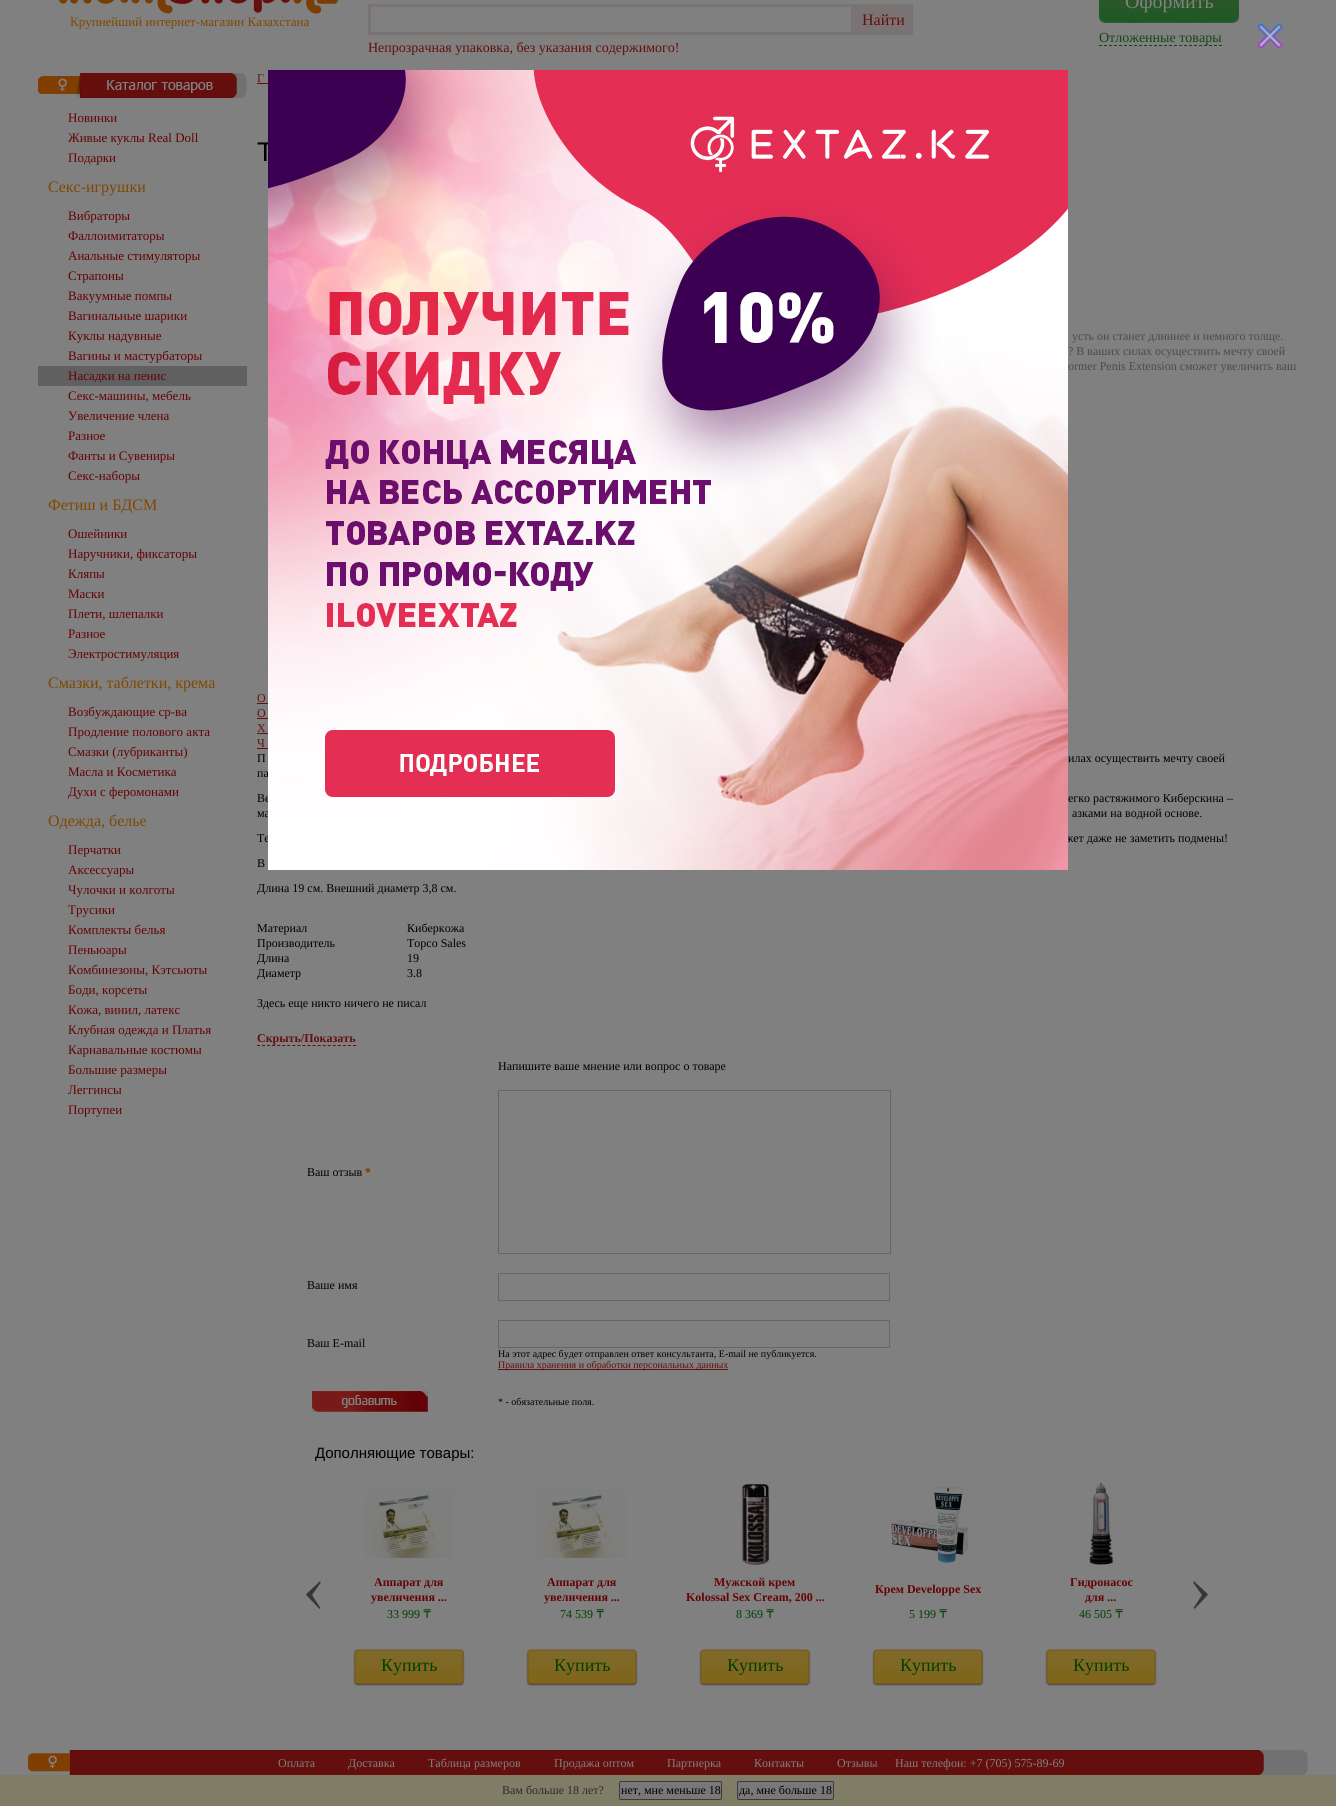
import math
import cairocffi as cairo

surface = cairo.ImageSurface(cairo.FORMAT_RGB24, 1336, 1806)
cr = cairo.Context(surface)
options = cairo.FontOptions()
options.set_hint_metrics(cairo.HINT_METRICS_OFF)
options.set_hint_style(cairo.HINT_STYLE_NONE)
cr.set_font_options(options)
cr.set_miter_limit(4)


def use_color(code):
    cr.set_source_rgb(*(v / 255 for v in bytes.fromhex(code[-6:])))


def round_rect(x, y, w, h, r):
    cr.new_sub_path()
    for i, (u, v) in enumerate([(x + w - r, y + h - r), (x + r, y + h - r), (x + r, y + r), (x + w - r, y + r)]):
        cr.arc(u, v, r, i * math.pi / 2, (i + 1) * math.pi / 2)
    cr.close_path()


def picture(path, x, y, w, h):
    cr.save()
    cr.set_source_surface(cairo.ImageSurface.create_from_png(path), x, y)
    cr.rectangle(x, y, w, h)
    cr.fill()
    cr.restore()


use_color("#808080")
cr.paint()
picture("img1.png", 59, 0, 279, 14)
cr.select_font_face("Liberation Serif")
cr.set_font_size(13)
use_color("#804700")
cr.move_to(70, 26)
cr.show_text("Крупнейший интернет-магазин Казахстана")
cr.rectangle(369.5, 5.5, 483, 28)
use_color("#7a7373")
cr.set_line_width(3)
cr.stroke()
cr.rectangle(854, 4, 59, 31)
cr.fill()
cr.set_font_size(16)
use_color("#650e0e")
cr.move_to(862, 25)
cr.show_text("Найти")
cr.set_font_size(14)
cr.move_to(368, 52)
cr.show_text("Непрозрачная упаковка, без указания содержимого!")
picture("img2.png", 1099, 0, 140, 23)
cr.set_font_size(20)
use_color("#808080")
cr.move_to(1125, 8)
cr.show_text("Оформить")
cr.set_font_size(14)
use_color("#104713")
cr.move_to(1099, 42)
cr.show_text("Отложенные товары")
cr.new_path()
cr.move_to(1099, 45.5)
cr.line_to(1222, 45.5)
cr.set_line_width(1)
cr.set_dash([3, 2])
cr.stroke()
picture("img3.png", 38, 73, 209, 25)
cr.set_font_size(13)
use_color("#650303")
cr.move_to(68, 122)
cr.show_text("Новинки")
cr.move_to(68, 142)
cr.show_text("Живые куклы Real Doll")
cr.move_to(68, 162)
cr.show_text("Подарки")
cr.set_font_size(16)
use_color("#804700")
cr.move_to(48, 192)
cr.show_text("Секс-игрушки")
cr.set_font_size(13)
use_color("#650303")
cr.move_to(68, 220)
cr.show_text("Вибраторы")
cr.move_to(68, 240)
cr.show_text("Фаллоимитаторы")
cr.move_to(68, 260)
cr.show_text("Анальные стимуляторы")
cr.move_to(68, 280)
cr.show_text("Страпоны")
cr.move_to(68, 300)
cr.show_text("Вакуумные помпы")
cr.move_to(68, 320)
cr.show_text("Вагинальные шарики")
cr.move_to(68, 340)
cr.show_text("Куклы надувные")
cr.move_to(68, 360)
cr.show_text("Вагины и мастурбаторы")
use_color("#606060")
cr.rectangle(38, 366, 209, 20)
cr.fill()
use_color("#650303")
cr.move_to(68, 380)
cr.show_text("Насадки на пенис")
cr.move_to(68, 400)
cr.show_text("Секс-машины, мебель")
cr.move_to(68, 420)
cr.show_text("Увеличение члена")
cr.move_to(68, 440)
cr.show_text("Разное")
cr.move_to(68, 460)
cr.show_text("Фанты и Сувениры")
cr.move_to(68, 480)
cr.show_text("Секс-наборы")
cr.set_font_size(16)
use_color("#804700")
cr.move_to(48, 510)
cr.show_text("Фетиш и БДСМ")
cr.set_font_size(13)
use_color("#650303")
cr.move_to(68, 538)
cr.show_text("Ошейники")
cr.move_to(68, 558)
cr.show_text("Наручники, фиксаторы")
cr.move_to(68, 578)
cr.show_text("Кляпы")
cr.move_to(68, 598)
cr.show_text("Маски")
cr.move_to(68, 618)
cr.show_text("Плети, шлепалки")
cr.move_to(68, 638)
cr.show_text("Разное")
cr.move_to(68, 658)
cr.show_text("Электростимуляция")
cr.set_font_size(16)
use_color("#804700")
cr.move_to(48, 688)
cr.show_text("Смазки, таблетки, крема")
cr.set_font_size(13)
use_color("#650303")
cr.move_to(68, 716)
cr.show_text("Возбуждающие ср-ва")
cr.move_to(68, 736)
cr.show_text("Продление полового акта")
cr.move_to(68, 756)
cr.show_text("Смазки (лубриканты)")
cr.move_to(68, 776)
cr.show_text("Масла и Косметика")
cr.move_to(68, 796)
cr.show_text("Духи с феромонами")
cr.set_font_size(16)
use_color("#804700")
cr.move_to(48, 826)
cr.show_text("Одежда, белье")
cr.set_font_size(13)
use_color("#650303")
cr.move_to(68, 854)
cr.show_text("Перчатки")
cr.move_to(68, 874)
cr.show_text("Аксессуары")
cr.move_to(68, 894)
cr.show_text("Чулочки и колготы")
cr.move_to(68, 914)
cr.show_text("Трусики")
cr.move_to(68, 934)
cr.show_text("Комплекты белья")
cr.move_to(68, 954)
cr.show_text("Пеньюары")
cr.move_to(68, 974)
cr.show_text("Комбинезоны, Кэтсьюты")
cr.move_to(68, 994)
cr.show_text("Боди, корсеты")
cr.move_to(68, 1014)
cr.show_text("Кожа, винил, латекс")
cr.move_to(68, 1034)
cr.show_text("Клубная одежда и Платья")
cr.move_to(68, 1054)
cr.show_text("Карнавальные костюмы")
cr.move_to(68, 1074)
cr.show_text("Большие размеры")
cr.move_to(68, 1094)
cr.show_text("Леггинсы")
cr.move_to(68, 1114)
cr.show_text("Портупеи")
cr.set_font_size(12)
use_color("#650e0e")
cr.move_to(257, 82)
cr.show_text("Г")
cr.rectangle(257, 83, 11, 1)
cr.fill()
cr.select_font_face("Liberation Sans")
cr.set_font_size(27)
use_color("#000000")
cr.move_to(257, 161)
cr.show_text("T")
cr.select_font_face("Liberation Serif")
cr.set_font_size(12)
use_color("#4b4b4b")
cr.move_to(1072, 340)
cr.show_text("усть он станет длиннее и немного толще.")
cr.move_to(1068, 355)
cr.show_text("? В ваших силах осуществить мечту своей")
cr.move_to(1068, 370)
cr.show_text("ormer Penis Extension сможет увеличить ваш")
use_color("#650e0e")
cr.move_to(257, 702)
cr.show_text("О")
cr.rectangle(257, 703, 11, 1)
cr.fill()
cr.move_to(257, 717)
cr.show_text("О")
cr.rectangle(257, 718, 11, 1)
cr.fill()
cr.move_to(257, 732)
cr.show_text("Х")
cr.rectangle(257, 733, 11, 1)
cr.fill()
cr.move_to(257, 747)
cr.show_text("Ч")
cr.rectangle(257, 748, 11, 1)
cr.fill()
use_color("#000000")
cr.move_to(257, 762)
cr.show_text("П")
cr.move_to(1068, 762)
cr.show_text("илах осуществить мечту своей")
cr.move_to(257, 777)
cr.show_text("па")
cr.move_to(257, 802)
cr.show_text("Ве")
cr.move_to(1068, 802)
cr.show_text("егко растяжимого Киберскина –")
cr.move_to(257, 817)
cr.show_text("ма")
cr.move_to(1072, 817)
cr.show_text("азками на водной основе.")
cr.move_to(257, 842)
cr.show_text("Те")
cr.move_to(1065, 842)
cr.show_text("жет даже не заметить подмены!")
cr.move_to(257, 867)
cr.show_text("В")
cr.move_to(257, 892)
cr.show_text("Длина 19 см. Внешний диаметр 3,8 см.")
cr.move_to(257, 932)
cr.show_text("Материал")
cr.move_to(407, 932)
cr.show_text("Киберкожа")
cr.move_to(257, 947)
cr.show_text("Производитель")
cr.move_to(407, 947)
cr.show_text("Topco Sales")
cr.move_to(257, 962)
cr.show_text("Длина")
cr.move_to(407, 962)
cr.show_text("19")
cr.move_to(257, 977)
cr.show_text("Диаметр")
cr.move_to(407, 977)
cr.show_text("3.8")
cr.move_to(257, 1007)
cr.show_text("Здесь еще никто ничего не писал")
cr.select_font_face("Liberation Serif", cairo.FONT_SLANT_NORMAL, cairo.FONT_WEIGHT_BOLD)
use_color("#650e0e")
cr.move_to(257, 1042)
cr.show_text("Скрыть/Показать")
cr.new_path()
cr.move_to(257, 1045.5)
cr.line_to(356, 1045.5)
use_color("#690c11")
cr.set_dash([3, 2.05])
cr.stroke()
cr.select_font_face("Liberation Serif")
use_color("#000000")
cr.move_to(498, 1070)
cr.show_text("Напишите ваше мнение или вопрос о товаре")
cr.move_to(307, 1176)
cr.show_text("Ваш отзыв")
cr.select_font_face("Liberation Serif", cairo.FONT_SLANT_NORMAL, cairo.FONT_WEIGHT_BOLD)
use_color("#783600")
cr.move_to(365, 1176)
cr.show_text("*")
cr.rectangle(498.5, 1090.5, 392, 163)
use_color("#666666")
cr.set_dash([])
cr.stroke()
cr.select_font_face("Liberation Serif")
use_color("#000000")
cr.move_to(307, 1289)
cr.show_text("Ваше имя")
cr.rectangle(498.5, 1273.5, 391, 27)
use_color("#666666")
cr.stroke()
use_color("#000000")
cr.move_to(307, 1347)
cr.show_text("Ваш E-mail")
cr.rectangle(498.5, 1320.5, 391, 27)
use_color("#666666")
cr.stroke()
cr.set_font_size(10)
use_color("#000000")
cr.move_to(498, 1357)
cr.show_text("На этот адрес будет отправлен ответ консультанта, E-mail не публикуется.")
use_color("#650e0e")
cr.rectangle(498, 1369, 230, 1)
cr.fill()
cr.move_to(498, 1368)
cr.show_text("Правила хранения и обработки персональных данных")
picture("img4.png", 312, 1391, 116, 21)
use_color("#000000")
cr.move_to(498, 1405)
cr.show_text("* - обязательные поля.")
cr.select_font_face("Liberation Sans")
cr.set_font_size(15)
cr.move_to(315, 1458)
cr.show_text("Дополняющие товары:")
picture("img5.png", 306, 1581, 15, 28)
picture("img6.png", 364, 1490, 90, 70)
cr.select_font_face("Liberation Serif", cairo.FONT_SLANT_NORMAL, cairo.FONT_WEIGHT_BOLD)
cr.set_font_size(12)
use_color("#650303")
cr.move_to(374, 1586)
cr.show_text("Аппарат для")
cr.move_to(371, 1601)
cr.show_text("увеличения ...")
cr.select_font_face("Liberation Serif")
use_color("#004000")
cr.move_to(387, 1618)
cr.show_text("33 999")
cr.select_font_face("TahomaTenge")
cr.move_to(423, 1618)
cr.show_text("т")
picture("img7.png", 353, 1649, 112, 37)
cr.select_font_face("Liberation Serif")
cr.set_font_size(18)
cr.move_to(381, 1671)
cr.show_text("Купить")
picture("img6.png", 537, 1490, 90, 70)
cr.select_font_face("Liberation Serif", cairo.FONT_SLANT_NORMAL, cairo.FONT_WEIGHT_BOLD)
cr.set_font_size(12)
use_color("#650303")
cr.move_to(547, 1586)
cr.show_text("Аппарат для")
cr.move_to(544, 1601)
cr.show_text("увеличения ...")
cr.select_font_face("Liberation Serif")
use_color("#004000")
cr.move_to(560, 1618)
cr.show_text("74 539")
cr.select_font_face("TahomaTenge")
cr.move_to(596, 1618)
cr.show_text("т")
picture("img7.png", 526, 1649, 112, 37)
cr.select_font_face("Liberation Serif")
cr.set_font_size(18)
cr.move_to(554, 1671)
cr.show_text("Купить")
picture("img8.png", 741, 1484, 29, 82)
cr.select_font_face("Liberation Serif", cairo.FONT_SLANT_NORMAL, cairo.FONT_WEIGHT_BOLD)
cr.set_font_size(12)
use_color("#650303")
cr.move_to(714, 1586)
cr.show_text("Мужской крем")
cr.move_to(686, 1601)
cr.show_text("Kolossal Sex Cream, 200 ...")
cr.select_font_face("Liberation Serif")
use_color("#004000")
cr.move_to(736, 1618)
cr.show_text("8 369")
cr.select_font_face("TahomaTenge")
cr.move_to(766, 1618)
cr.show_text("т")
picture("img7.png", 699, 1649, 112, 37)
cr.select_font_face("Liberation Serif")
cr.set_font_size(18)
cr.move_to(727, 1671)
cr.show_text("Купить")
picture("img9.png", 891, 1486, 78, 78)
cr.select_font_face("Liberation Serif", cairo.FONT_SLANT_NORMAL, cairo.FONT_WEIGHT_BOLD)
cr.set_font_size(12)
use_color("#650303")
cr.move_to(875, 1593)
cr.show_text("Крем Developpe Sex")
cr.select_font_face("Liberation Serif")
use_color("#004000")
cr.move_to(909, 1618)
cr.show_text("5 199")
cr.select_font_face("TahomaTenge")
cr.move_to(939, 1618)
cr.show_text("т")
picture("img7.png", 872, 1649, 112, 37)
cr.select_font_face("Liberation Serif")
cr.set_font_size(18)
cr.move_to(900, 1671)
cr.show_text("Купить")
picture("img10.png", 1089, 1483, 24, 82)
cr.select_font_face("Liberation Serif", cairo.FONT_SLANT_NORMAL, cairo.FONT_WEIGHT_BOLD)
cr.set_font_size(12)
use_color("#650303")
cr.move_to(1070, 1586)
cr.show_text("Гидронасос")
cr.move_to(1085, 1601)
cr.show_text("для ...")
cr.select_font_face("Liberation Serif")
use_color("#004000")
cr.move_to(1079, 1618)
cr.show_text("46 505")
cr.select_font_face("TahomaTenge")
cr.move_to(1115, 1618)
cr.show_text("т")
picture("img7.png", 1045, 1649, 112, 37)
cr.select_font_face("Liberation Serif")
cr.set_font_size(18)
cr.move_to(1073, 1671)
cr.show_text("Купить")
picture("img11.png", 1193, 1581, 15, 28)
picture("img12.png", 28, 1750, 42, 25)
use_color("#650e0e")
cr.rectangle(70, 1750, 1188, 25)
cr.fill()
cr.set_font_size(12)
use_color("#808080")
cr.move_to(278, 1767)
cr.show_text("Оплата")
cr.move_to(348, 1767)
cr.show_text("Доставка")
cr.move_to(428, 1767)
cr.show_text("Таблица размеров")
cr.move_to(554, 1767)
cr.show_text("Продажа оптом")
cr.move_to(667, 1767)
cr.show_text("Партнерка")
cr.move_to(754, 1767)
cr.show_text("Контакты")
cr.move_to(837, 1767)
cr.show_text("Отзывы")
cr.move_to(895, 1767)
cr.show_text("Наш телефон: +7 (705) 575-89-69")
picture("img13.png", 1258, 1750, 50, 25)
picture("img14.png", 1257, 23, 26, 26)
picture("img15.png", 268, 70, 800, 800)
use_color("#807d67")
cr.rectangle(0, 1775, 1336, 31)
cr.fill()
use_color("#2a2a2a")
cr.move_to(502, 1794)
cr.show_text("Вам больше 18 лет?")
use_color("#787878")
round_rect(619.5, 1781.5, 102, 18, 1.5)
cr.fill_preserve()
use_color("#3b3b3b")
cr.stroke()
use_color("#000000")
cr.move_to(621, 1794)
cr.show_text("нет, мне меньше 18")
use_color("#787878")
round_rect(737.5, 1781.5, 96, 18, 1.5)
cr.fill_preserve()
use_color("#3b3b3b")
cr.stroke()
use_color("#000000")
cr.move_to(739, 1794)
cr.show_text("да, мне больше 18")
surface.write_to_png("result.png")
